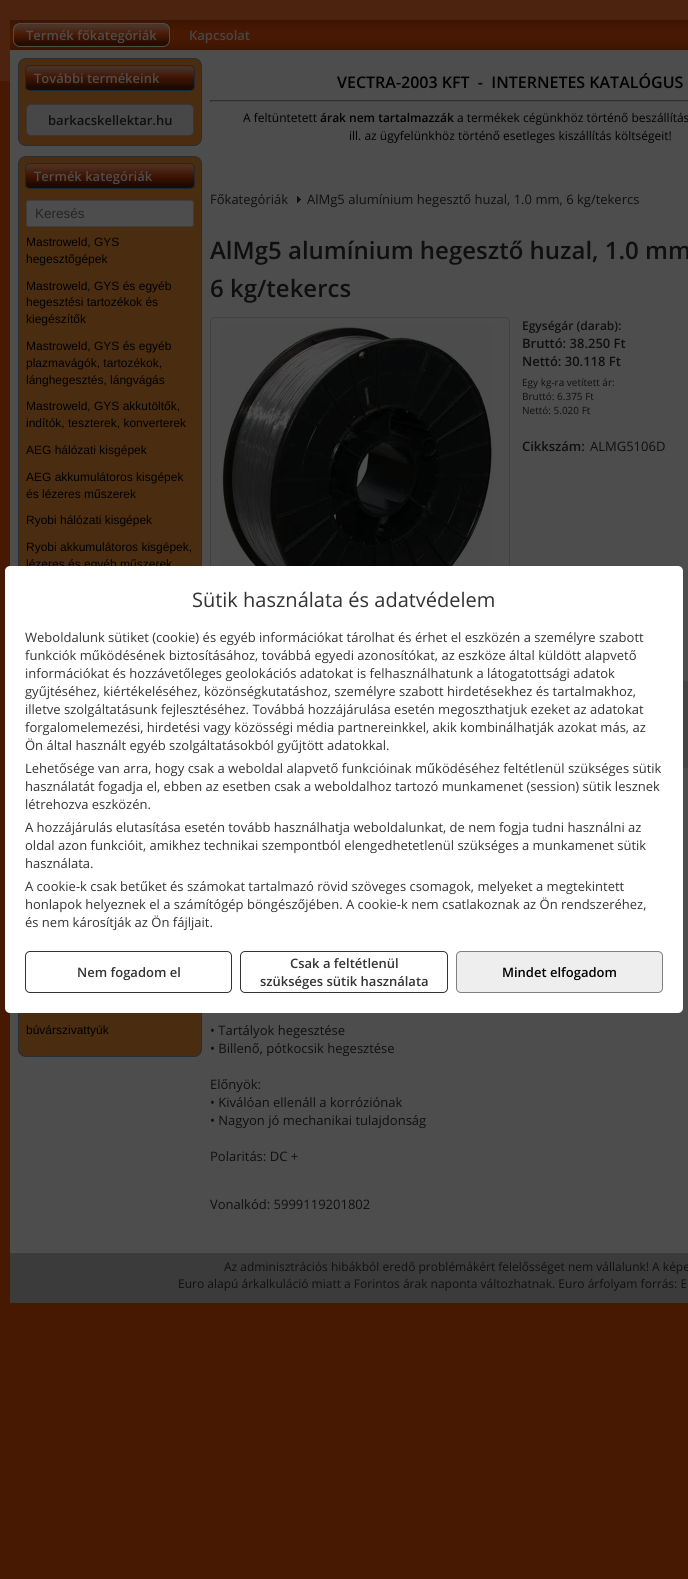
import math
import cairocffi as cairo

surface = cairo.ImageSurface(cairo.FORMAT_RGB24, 688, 1579)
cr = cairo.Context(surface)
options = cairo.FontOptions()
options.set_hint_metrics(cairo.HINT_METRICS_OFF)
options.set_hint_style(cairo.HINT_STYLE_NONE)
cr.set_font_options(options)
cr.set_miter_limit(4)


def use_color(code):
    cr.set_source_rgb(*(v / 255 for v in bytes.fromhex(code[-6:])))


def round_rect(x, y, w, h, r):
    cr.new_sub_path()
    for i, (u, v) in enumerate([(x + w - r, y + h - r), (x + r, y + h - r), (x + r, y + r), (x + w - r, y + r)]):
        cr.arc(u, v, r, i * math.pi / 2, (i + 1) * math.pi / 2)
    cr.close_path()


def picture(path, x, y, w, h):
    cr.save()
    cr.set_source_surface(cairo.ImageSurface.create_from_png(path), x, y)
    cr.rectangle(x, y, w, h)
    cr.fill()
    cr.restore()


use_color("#471802")
cr.paint()
use_color("#4b230f")
cr.rectangle(0, 0, 688, 81)
cr.fill()
use_color("#4d4d4d")
cr.rectangle(10, 50, 678, 1203)
cr.fill()
gradient = cairo.LinearGradient(510, 20, 510, 50)
gradient.add_color_stop_rgba(0, 0.235, 0.082, 0.004, 1)
gradient.add_color_stop_rgba(0.35, 0.278, 0.094, 0.008, 1)
gradient.add_color_stop_rgba(0.65, 0.278, 0.094, 0.008, 1)
gradient.add_color_stop_rgba(1, 0.235, 0.082, 0.004, 1)
cr.set_source(gradient)
cr.rectangle(10, 20, 678, 30)
cr.fill()
cr.save()
round_rect(13, 23, 157, 24, 7)
cr.clip()
gradient = cairo.LinearGradient(92, 24, 92, 46)
gradient.add_color_stop_rgba(0.1, 0.298, 0.204, 0.157, 1)
gradient.add_color_stop_rgba(0.5, 0.282, 0.098, 0.008, 1)
gradient.add_color_stop_rgba(0.9, 0.137, 0.047, 0.004, 1)
cr.set_source(gradient)
cr.rectangle(13, 24, 157, 22)
cr.fill()
cr.restore()
round_rect(13.5, 23.5, 156, 23, 6.5)
use_color("#4d4d4d")
cr.set_line_width(1)
cr.stroke()
cr.select_font_face("Open Sans SemiBold")
cr.set_font_size(13)
cr.move_to(26, 40)
cr.show_text("Termék főkategóriák")
picture("img1.png", 173, 31, 1, 9)
use_color("#464646")
cr.move_to(189, 40)
cr.show_text("Kapcsolat")
use_color("#4a2d10")
round_rect(18.5, 58.5, 183, 87, 7.5)
cr.fill_preserve()
use_color("#262d35")
cr.stroke()
cr.save()
round_rect(25, 65, 170, 26, 5)
cr.clip()
gradient = cairo.LinearGradient(110, 66, 110, 90)
gradient.add_color_stop_rgba(0.1, 0.298, 0.184, 0.137, 1)
gradient.add_color_stop_rgba(0.5, 0.247, 0.078, 0.004, 1)
gradient.add_color_stop_rgba(0.9, 0.11, 0.035, 0, 1)
cr.set_source(gradient)
cr.rectangle(25, 66, 170, 24)
cr.fill()
cr.restore()
round_rect(25.5, 65.5, 169, 25, 4.5)
use_color("#1f2730")
cr.stroke()
use_color("#4d4d4d")
cr.move_to(34, 83)
cr.show_text("További termékeink")
use_color("#474747")
round_rect(26.5, 104.5, 167, 31, 4.5)
cr.fill_preserve()
use_color("#383838")
cr.stroke()
use_color("#0f0f0f")
cr.move_to(48, 125)
cr.show_text("barkacskellektar.hu")
use_color("#4a2d10")
round_rect(18.5, 156.5, 183, 900, 7.5)
cr.fill_preserve()
use_color("#262d35")
cr.stroke()
cr.save()
round_rect(25, 163, 170, 26, 5)
cr.clip()
gradient = cairo.LinearGradient(110, 164, 110, 188)
gradient.add_color_stop_rgba(0.1, 0.298, 0.184, 0.137, 1)
gradient.add_color_stop_rgba(0.5, 0.247, 0.078, 0.004, 1)
gradient.add_color_stop_rgba(0.9, 0.11, 0.035, 0, 1)
cr.set_source(gradient)
cr.rectangle(25, 164, 170, 24)
cr.fill()
cr.restore()
round_rect(25.5, 163.5, 169, 25, 4.5)
use_color("#1f2730")
cr.stroke()
use_color("#4d4d4d")
cr.move_to(34, 181)
cr.show_text("Termék kategóriák")
round_rect(26.5, 200.5, 167, 26, 2.5)
cr.fill_preserve()
use_color("#3d3d3d")
cr.stroke()
cr.select_font_face("Liberation Sans")
cr.set_font_size(13.5)
use_color("#232323")
cr.move_to(35, 218)
cr.show_text("Keresés")
cr.set_font_size(12)
use_color("#000000")
cr.move_to(26, 246)
cr.show_text("Mastroweld, GYS")
cr.move_to(26, 263)
cr.show_text("hegesztőgépek")
cr.move_to(26, 290)
cr.show_text("Mastroweld, GYS és egyéb")
cr.move_to(26, 306)
cr.show_text("hegesztési tartozékok és")
cr.move_to(26, 323)
cr.show_text("kiegészítők")
cr.move_to(26, 350)
cr.show_text("Mastroweld, GYS és egyéb")
cr.move_to(26, 367)
cr.show_text("plazmavágók, tartozékok,")
cr.move_to(26, 384)
cr.show_text("lánghegesztés, lángvágás")
cr.move_to(26, 410)
cr.show_text("Mastroweld, GYS akkutöltők,")
cr.move_to(26, 427)
cr.show_text("indítók, teszterek, konverterek")
cr.move_to(26, 454)
cr.show_text("AEG hálózati kisgépek")
cr.move_to(26, 481)
cr.show_text("AEG akkumulátoros kisgépek")
cr.move_to(26, 498)
cr.show_text("és lézeres műszerek")
cr.move_to(26, 524)
cr.show_text("Ryobi hálózati kisgépek")
cr.move_to(26, 551)
cr.show_text("Ryobi akkumulátoros kisgépek,")
cr.move_to(26, 568)
cr.show_text("lézeres és egyéb műszerek")
cr.move_to(26, 1034)
cr.show_text("búvárszivattyúk")
cr.select_font_face("Open Sans SemiBold")
cr.set_font_size(16)
cr.move_to(337, 88)
cr.show_text("VECTRA-2003 KFT  -  INTERNETES KATALÓGUS")
use_color("#303030")
cr.rectangle(210, 100, 478, 1)
cr.fill()
use_color("#474747")
cr.rectangle(210, 101, 478, 1)
cr.fill()
use_color("#303030")
cr.rectangle(210, 100, 1, 2)
cr.fill()
cr.select_font_face("Open Sans")
cr.set_font_size(12)
use_color("#000000")
cr.move_to(243, 122)
cr.show_text("A feltüntetett")
cr.select_font_face("Open Sans SemiBold")
cr.move_to(320, 122)
cr.show_text("árak nem tartalmazzák")
cr.select_font_face("Open Sans")
cr.move_to(457, 122)
cr.show_text("a termékek cégünkhöz történő beszállítás")
cr.move_to(349, 140)
cr.show_text("ill. az ügyfelünkhöz történő esetleges kiszállítás költségeit!")
cr.set_font_size(13)
use_color("#0f0f0f")
cr.move_to(210, 204)
cr.show_text("Főkategóriák")
picture("img2.png", 297, 196, 4, 7)
cr.move_to(307, 204)
cr.show_text("AlMg5 alumínium hegesztő huzal, 1.0 mm, 6 kg/tekercs")
cr.select_font_face("Open Sans SemiBold")
cr.set_font_size(24)
cr.move_to(210, 259)
cr.show_text("AlMg5 alumínium hegesztő huzal, 1.0 mm")
cr.move_to(210, 297)
cr.show_text("6 kg/tekercs")
round_rect(210.5, 317.5, 299, 307, 4.5)
use_color("#424242")
cr.stroke()
picture("img3.png", 221, 325, 273, 241)
cr.set_font_size(12)
use_color("#0f0f0f")
cr.move_to(522, 330)
cr.show_text("Egységár (darab):")
cr.set_font_size(13)
cr.move_to(522, 348)
cr.show_text("Bruttó: 38.250 Ft")
cr.move_to(522, 366)
cr.show_text("Nettó: 30.118 Ft")
cr.select_font_face("Open Sans")
cr.set_font_size(10)
cr.move_to(522, 386)
cr.show_text("Egy kg-ra vetített ár:")
cr.move_to(522, 400)
cr.show_text("Bruttó: 6.375 Ft")
cr.move_to(522, 414)
cr.show_text("Nettó: 5.020 Ft")
cr.select_font_face("Open Sans SemiBold")
cr.set_font_size(13)
cr.move_to(522, 451)
cr.show_text("Cikkszám:")
cr.select_font_face("Open Sans")
cr.move_to(590, 451)
cr.show_text("ALMG5106D")
gradient = cairo.LinearGradient(210, 725, 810, 725)
gradient.add_color_stop_rgba(0.04, 0.286, 0.286, 0.286, 1)
gradient.add_color_stop_rgba(0.99, 0.263, 0.263, 0.259, 1)
cr.set_source(gradient)
cr.rectangle(683, 681, 5, 87)
cr.fill()
use_color("#0f0f0f")
cr.move_to(210, 1035)
cr.show_text("• Tartályok hegesztése")
cr.move_to(210, 1053)
cr.show_text("• Billenő, pótkocsik hegesztése")
cr.move_to(210, 1089)
cr.show_text("Előnyök:")
cr.move_to(210, 1107)
cr.show_text("• Kiválóan ellenáll a korróziónak")
cr.move_to(210, 1125)
cr.show_text("• Nagyon jó mechanikai tulajdonság")
cr.move_to(210, 1161)
cr.show_text("Polaritás: DC +")
cr.move_to(210, 1209)
cr.show_text("Vonalkód: 5999119201802")
use_color("#3b3b3c")
cr.rectangle(10, 1253, 678, 50)
cr.fill()
cr.set_font_size(12)
use_color("#0f0f0f")
cr.move_to(224, 1271)
cr.show_text("Az adminisztrációs hibákból eredő problémákért felelősséget nem vállalunk! A képe")
cr.move_to(178, 1288)
cr.show_text("Euro alapú árkalkuláció miatt a Forintos árak naponta változhatnak. Euro árfolyam forrás: E")
use_color("#ffffff")
round_rect(5, 566, 678, 447, 5)
cr.fill()
cr.set_font_size(20)
use_color("#333333")
cr.move_to(192, 607)
cr.show_text("Sütik használata és adatvédelem")
cr.set_font_size(13)
cr.move_to(25, 642)
cr.show_text("Weboldalunk sütiket (cookie) és egyéb információkat tárolhat és érhet el eszközén a személyre szabott")
cr.move_to(25, 660)
cr.show_text("funkciók működésének biztosításához, továbbá egyedi azonosítókat, az eszköze által küldött alapvető")
cr.move_to(25, 678)
cr.show_text("információkat és hozzávetőleges geolokációs adatokat is felhasználhatunk a látogatottsági adatok")
cr.move_to(25, 696)
cr.show_text("gyűjtéséhez, kiértékeléséhez, közönségkutatáshoz, személyre szabott hirdetésekhez és tartalmakhoz,")
cr.move_to(25, 714)
cr.show_text("illetve szolgáltatásunk fejlesztéséhez. Továbbá hozzájárulása esetén megoszthatjuk ezeket az adatokat")
cr.move_to(25, 732)
cr.show_text("forgalomelemezési, hirdetési vagy közösségi média partnereinkkel, akik kombinálhatják azokat más, az")
cr.move_to(25, 750)
cr.show_text("Ön által használt egyéb szolgáltatásokból gyűjtött adatokkal.")
cr.move_to(25, 773)
cr.show_text("Lehetősége van arra, hogy csak a weboldal alapvető funkcióinak működéséhez feltétlenül szükséges sütik")
cr.move_to(25, 791)
cr.show_text("használatát fogadja el, ebben az esetben csak a weboldalhoz tartozó munkamenet (session) sütik lesznek")
cr.move_to(25, 809)
cr.show_text("létrehozva eszközén.")
cr.move_to(25, 832)
cr.show_text("A hozzájárulás elutasítása esetén tovább használhatja weboldalunkat, de nem fogja tudni használni az")
cr.move_to(25, 850)
cr.show_text("oldal azon funkcióit, amikhez technikai szempontból elengedhetetlenül szükséges a munkamenet sütik")
cr.move_to(25, 868)
cr.show_text("használata.")
cr.move_to(25, 891)
cr.show_text("A cookie-k csak betűket és számokat tartalmazó rövid szöveges csomagok, melyeket a megtekintett")
cr.move_to(25, 909)
cr.show_text("honlapok helyeznek el a számítógép böngészőjében. A cookie-k nem csatlakoznak az Ön rendszeréhez,")
cr.move_to(25, 927)
cr.show_text("és nem károsítják az Ön fájljait.")
round_rect(25.5, 951.5, 206, 41, 4.5)
cr.stroke()
cr.select_font_face("Open Sans SemiBold")
cr.move_to(77, 977)
cr.show_text("Nem fogadom el")
round_rect(240.5, 951.5, 207, 41, 4.5)
cr.stroke()
cr.move_to(290, 968)
cr.show_text("Csak a feltétlenül")
cr.move_to(260, 986)
cr.show_text("szükséges sütik használata")
use_color("#eeeeee")
round_rect(456.5, 951.5, 206, 41, 4.5)
cr.fill_preserve()
use_color("#808080")
cr.stroke()
use_color("#000000")
cr.move_to(502, 977)
cr.show_text("Mindet elfogadom")
surface.write_to_png("result.png")
